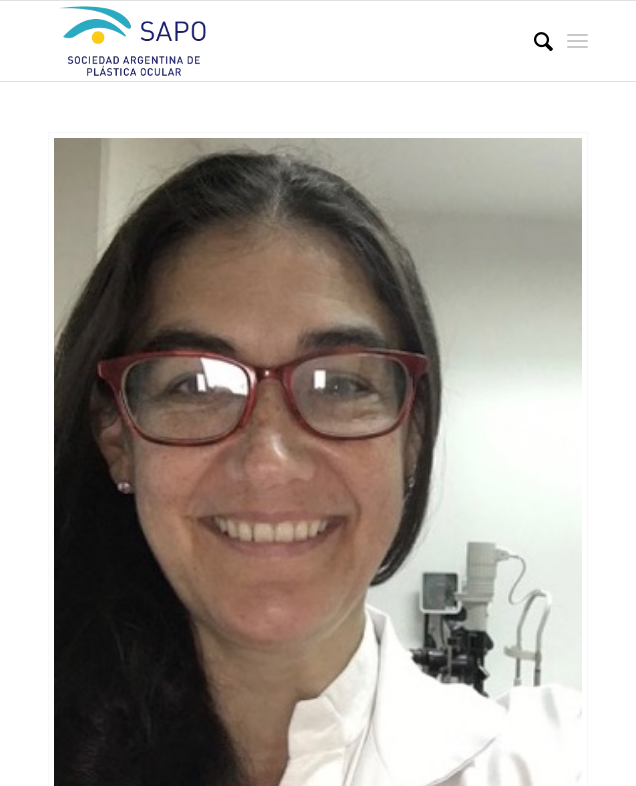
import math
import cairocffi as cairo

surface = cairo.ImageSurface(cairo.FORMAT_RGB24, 636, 786)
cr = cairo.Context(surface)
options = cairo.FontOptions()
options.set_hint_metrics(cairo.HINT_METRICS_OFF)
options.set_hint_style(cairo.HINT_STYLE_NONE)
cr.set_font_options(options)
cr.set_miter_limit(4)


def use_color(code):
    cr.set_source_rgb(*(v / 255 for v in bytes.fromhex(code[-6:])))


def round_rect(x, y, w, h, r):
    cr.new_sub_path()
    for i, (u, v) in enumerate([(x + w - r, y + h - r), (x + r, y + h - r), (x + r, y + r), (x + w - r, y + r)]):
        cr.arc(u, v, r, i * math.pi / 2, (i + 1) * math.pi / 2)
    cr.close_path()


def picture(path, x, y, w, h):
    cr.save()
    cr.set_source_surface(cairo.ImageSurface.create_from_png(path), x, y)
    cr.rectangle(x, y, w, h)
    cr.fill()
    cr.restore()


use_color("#ffffff")
cr.paint()
use_color("#e1e1e1")
cr.rectangle(0, 0, 636, 1)
cr.fill()
cr.rectangle(0, 81, 636, 1)
cr.fill()
picture("img1.png", 59, 6, 147, 70)
picture("img2.png", 534, 32, 19, 20)
use_color("#c9c9c9")
round_rect(567, 40, 21, 2, 1)
cr.fill()
round_rect(567, 34, 21, 2, 1)
cr.fill()
round_rect(567, 46, 21, 2, 1)
cr.fill()
cr.rectangle(48.5, 132.5, 539, 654)
use_color("#f8f8f8")
cr.set_line_width(1)
cr.stroke()
picture("img3.png", 54, 138, 528, 648)
surface.write_to_png("result.png")
